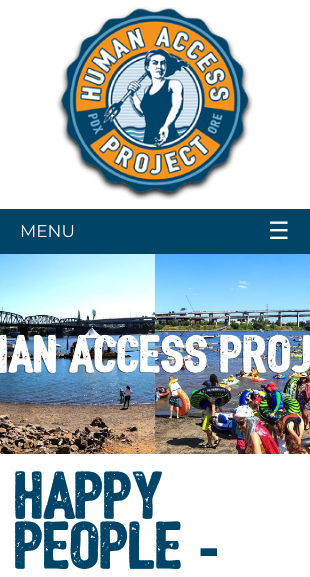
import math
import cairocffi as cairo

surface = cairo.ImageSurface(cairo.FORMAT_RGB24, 310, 577)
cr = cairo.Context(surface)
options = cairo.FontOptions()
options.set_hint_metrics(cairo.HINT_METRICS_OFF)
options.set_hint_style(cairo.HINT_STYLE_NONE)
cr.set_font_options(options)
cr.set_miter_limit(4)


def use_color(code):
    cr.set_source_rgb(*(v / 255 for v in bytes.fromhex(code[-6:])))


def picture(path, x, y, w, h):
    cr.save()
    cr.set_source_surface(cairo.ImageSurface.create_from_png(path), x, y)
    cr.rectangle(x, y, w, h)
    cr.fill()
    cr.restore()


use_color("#ffffff")
cr.paint()
picture("img1.png", 56, 7, 197, 193)
use_color("#004568")
cr.rectangle(0, 209, 310, 45)
cr.fill()
cr.select_font_face("Montserrat")
cr.set_font_size(17)
use_color("#ffffff")
cr.move_to(20, 237)
cr.show_text("MENU")
cr.select_font_face("DejaVu Sans")
cr.set_font_size(24)
cr.move_to(268, 239)
cr.show_text("☰")
picture("img2.png", 0, 254, 310, 200)
cr.select_font_face("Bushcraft", cairo.FONT_SLANT_NORMAL, cairo.FONT_WEIGHT_BOLD)
cr.set_font_size(65)
use_color("#004568")
cr.move_to(15, 519)
cr.show_text("HAPPY")
cr.move_to(15, 569)
cr.show_text("PEOPLE")
cr.select_font_face("Liberation Sans", cairo.FONT_SLANT_NORMAL, cairo.FONT_WEIGHT_BOLD)
cr.move_to(198, 569)
cr.show_text("-")
surface.write_to_png("result.png")
